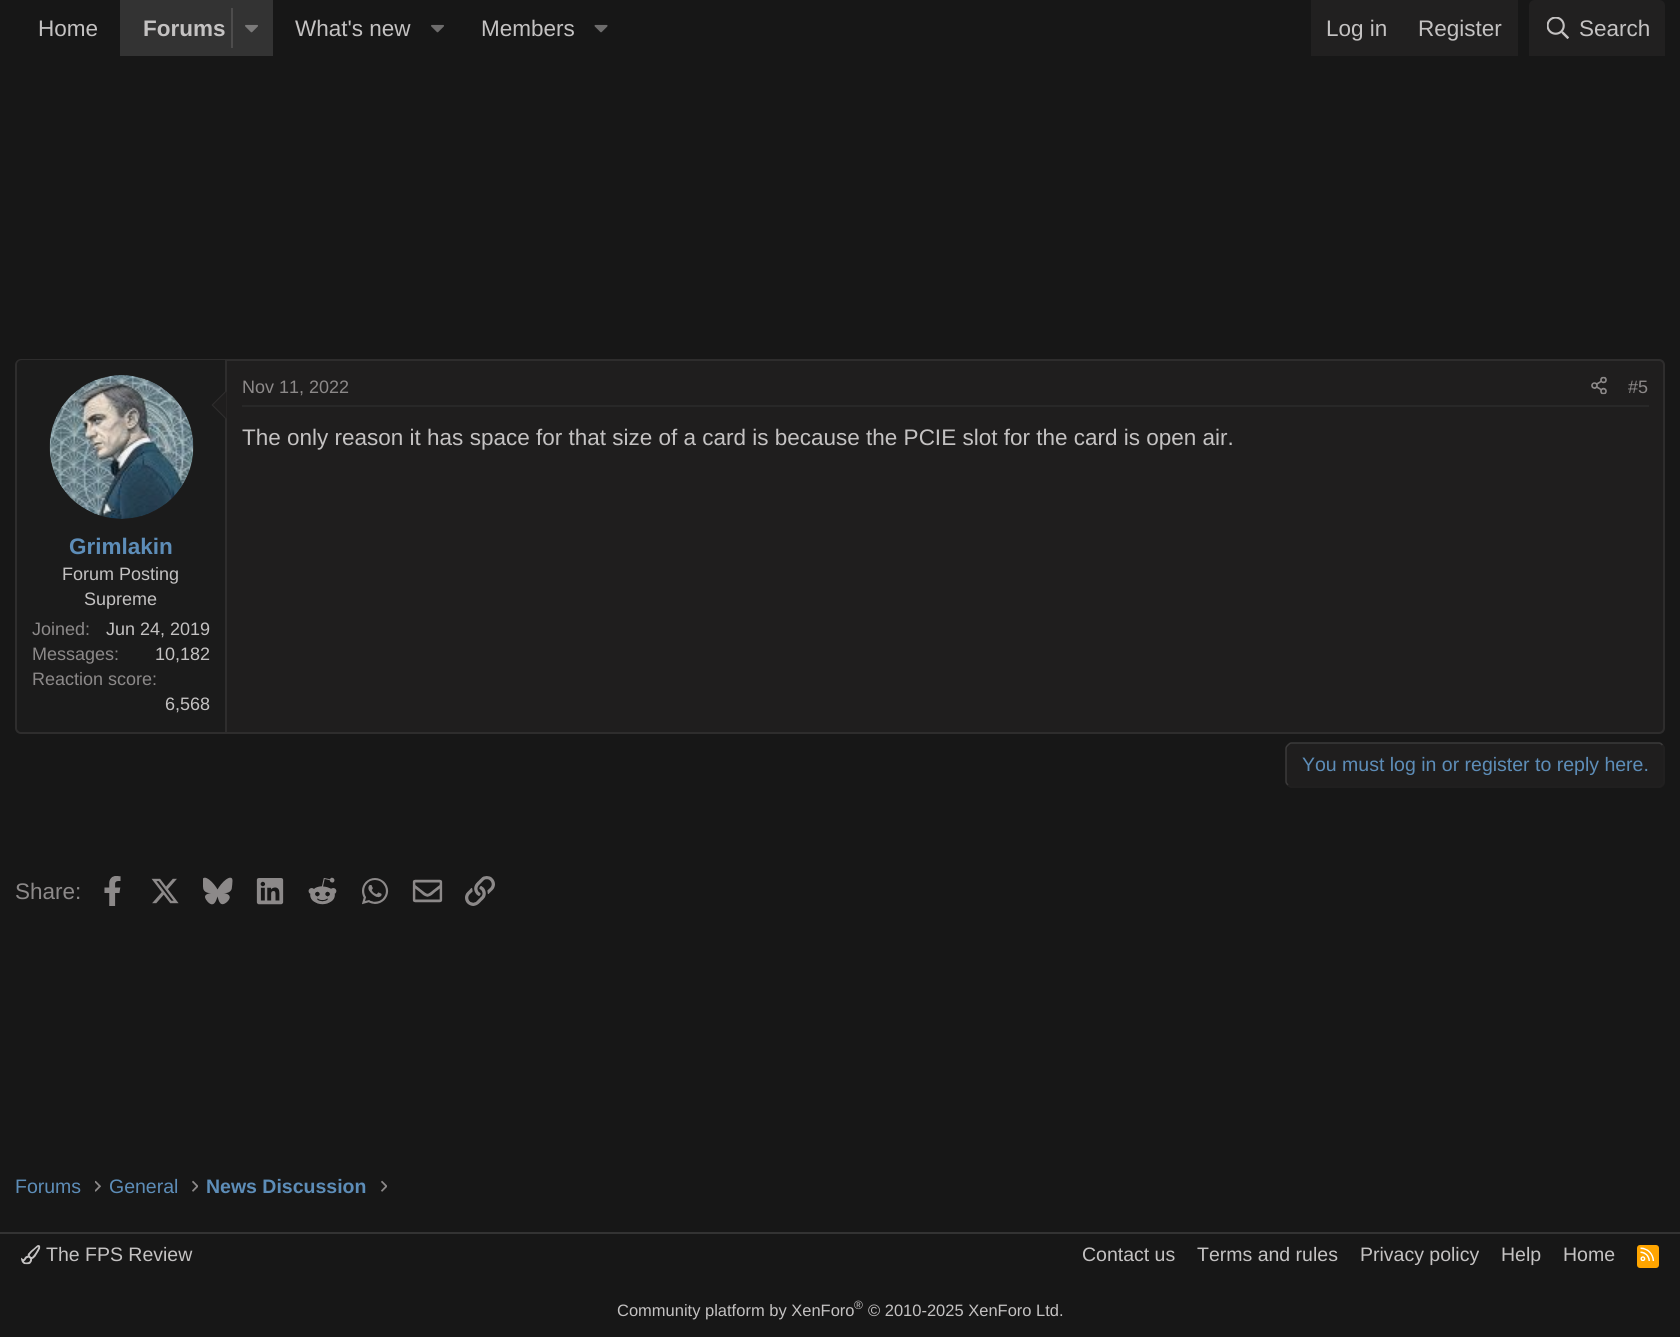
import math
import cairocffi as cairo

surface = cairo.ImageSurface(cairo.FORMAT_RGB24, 1680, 1337)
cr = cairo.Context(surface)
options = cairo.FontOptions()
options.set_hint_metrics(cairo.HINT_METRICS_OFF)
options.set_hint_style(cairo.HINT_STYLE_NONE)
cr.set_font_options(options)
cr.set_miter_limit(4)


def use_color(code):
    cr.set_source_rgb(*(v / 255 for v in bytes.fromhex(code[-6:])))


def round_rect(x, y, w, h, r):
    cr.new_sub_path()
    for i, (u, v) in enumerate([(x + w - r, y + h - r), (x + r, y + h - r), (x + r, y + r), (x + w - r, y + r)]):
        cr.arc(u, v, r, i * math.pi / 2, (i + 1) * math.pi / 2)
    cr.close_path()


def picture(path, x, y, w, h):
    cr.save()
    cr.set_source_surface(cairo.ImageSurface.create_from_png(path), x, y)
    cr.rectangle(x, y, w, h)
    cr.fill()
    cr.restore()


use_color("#171717")
cr.paint()
cr.select_font_face("Liberation Sans")
cr.set_font_size(22.5)
use_color("#c4c2c2")
cr.move_to(38, 36)
cr.show_text("Home")
use_color("#333333")
cr.rectangle(120, 0, 153, 56)
cr.fill()
cr.select_font_face("Liberation Sans", cairo.FONT_SLANT_NORMAL, cairo.FONT_WEIGHT_BOLD)
use_color("#c4c2c2")
cr.move_to(143, 36)
cr.show_text("Forums")
use_color("#4d4c4c")
cr.rectangle(231, 8, 2, 40)
cr.fill()
picture("img1.png", 245, 24, 13, 9)
cr.select_font_face("Liberation Sans")
use_color("#c4c2c2")
cr.move_to(295, 36)
cr.show_text("What's new")
picture("img2.png", 431, 24, 13, 9)
cr.move_to(481, 36)
cr.show_text("Members")
picture("img3.png", 594, 24, 14, 9)
use_color("#212020")
cr.rectangle(1311, 0, 207, 56)
cr.fill()
use_color("#c4c2c2")
cr.move_to(1326, 36)
cr.show_text("Log in")
cr.move_to(1418, 36)
cr.show_text("Register")
use_color("#212020")
cr.new_path()
cr.move_to(1535, 0)
cr.line_to(1659, 0)
cr.curve_to(1662.5, 0, 1665, 2.5, 1665, 6)
cr.line_to(1665, 56)
cr.line_to(1529, 56)
cr.line_to(1529, 6)
cr.curve_to(1529, 2.5, 1531.5, 0, 1535, 0)
cr.close_path()
cr.fill()
picture("img4.png", 1547, 17, 22, 22)
use_color("#c4c2c2")
cr.move_to(1579, 36)
cr.show_text("Search")
use_color("#1f1e1e")
round_rect(16, 360, 1648, 373, 5)
cr.fill_preserve()
use_color("#2e2d2d")
cr.stroke()
use_color("#282828")
cr.rectangle(242, 405, 1407, 2)
cr.fill()
cr.set_font_size(18)
use_color("#8c8989")
cr.move_to(242, 393)
cr.show_text("Nov 11, 2022")
picture("img5.png", 1591, 376, 16, 19)
cr.move_to(1628, 393)
cr.show_text("#5")
cr.set_font_size(22.5)
use_color("#c4c2c2")
cr.move_to(242, 445)
cr.show_text("The only reason it has space for that size of a card is because the PCIE slot for the card is open air.")
use_color("#1b1b1b")
cr.new_path()
cr.move_to(22, 360)
cr.line_to(227, 360)
cr.line_to(227, 732)
cr.line_to(22, 732)
cr.curve_to(19, 732, 17, 730, 17, 727)
cr.line_to(17, 365)
cr.curve_to(17, 362, 19, 360, 22, 360)
cr.close_path()
cr.fill()
use_color("#2e2d2d")
cr.rectangle(225, 360, 2, 372)
cr.fill()
use_color("#1f1e1e")
cr.arc(122, 447, 72, 0, 2 * math.pi)
cr.fill()
picture("img6.png", 49, 375, 145, 144)
use_color("#2e2d2d")
cr.new_path()
cr.move_to(226.5, 390)
cr.line_to(226.5, 420)
cr.line_to(211.5, 405)
cr.close_path()
cr.fill()
use_color("#1f1e1e")
cr.new_path()
cr.move_to(226.5, 391.5)
cr.line_to(226.5, 418.5)
cr.line_to(213, 405)
cr.close_path()
cr.fill()
cr.select_font_face("Liberation Sans", cairo.FONT_SLANT_NORMAL, cairo.FONT_WEIGHT_BOLD)
use_color("#5d8db8")
cr.move_to(69, 554)
cr.show_text("Grimlakin")
cr.select_font_face("Liberation Sans")
cr.set_font_size(18)
use_color("#c4c2c2")
cr.move_to(62, 580)
cr.show_text("Forum Posting")
cr.move_to(84, 605)
cr.show_text("Supreme")
use_color("#8c8989")
cr.move_to(32, 635)
cr.show_text("Joined:")
use_color("#c4c2c2")
cr.move_to(106, 635)
cr.show_text("Jun 24, 2019")
use_color("#8c8989")
cr.move_to(32, 660)
cr.show_text("Messages:")
use_color("#c4c2c2")
cr.move_to(155, 660)
cr.show_text("10,182")
use_color("#8c8989")
cr.move_to(32, 685)
cr.show_text("Reaction score:")
use_color("#c4c2c2")
cr.move_to(165, 710)
cr.show_text("6,568")
use_color("#1f1e1e")
round_rect(1286, 743, 379, 45, 6)
cr.fill()
cr.new_path()
cr.move_to(1662.5, 745)
cr.curve_to(1663.5, 746, 1664, 747, 1664, 748.5)
cr.line_to(1664, 781.5)
cr.curve_to(1664, 783, 1663.5, 784, 1662.5, 785)
cr.curve_to(1661.5, 786, 1660.5, 787, 1659, 787)
cr.line_to(1291.5, 787)
cr.curve_to(1290, 787, 1289, 786, 1288, 785)
use_color("#212020")
cr.set_line_width(1.5)
cr.stroke()
cr.new_path()
cr.move_to(1288, 785)
cr.curve_to(1287, 784, 1286, 783, 1286, 781.5)
cr.line_to(1286, 748.5)
cr.curve_to(1286, 747, 1287, 746, 1288, 745)
cr.curve_to(1289, 744, 1290, 743, 1291.5, 743)
cr.line_to(1659, 743)
cr.curve_to(1660.5, 743, 1661.5, 744, 1662.5, 745)
use_color("#3b3a3a")
cr.stroke()
cr.set_font_size(19.5)
use_color("#5d8db8")
cr.move_to(1302, 771)
cr.show_text("You must log in or register to reply here.")
cr.set_font_size(22.5)
use_color("#8c8989")
cr.move_to(15, 899)
cr.show_text("Share:")
picture("img7.png", 104, 876, 17, 30)
picture("img8.png", 151, 878, 28, 26)
picture("img9.png", 203, 877, 30, 28)
picture("img10.png", 256, 878, 28, 27)
picture("img11.png", 308, 877, 29, 28)
picture("img12.png", 362, 878, 27, 27)
picture("img13.png", 412, 879, 31, 24)
picture("img14.png", 465, 876, 30, 30)
cr.set_font_size(19.5)
use_color("#5d8db8")
cr.move_to(15, 1193)
cr.show_text("Forums")
picture("img15.png", 95, 1180, 6, 12)
cr.move_to(109, 1193)
cr.show_text("General")
picture("img16.png", 192, 1180, 6, 12)
cr.select_font_face("Liberation Sans", cairo.FONT_SLANT_NORMAL, cairo.FONT_WEIGHT_BOLD)
cr.move_to(206, 1193)
cr.show_text("News Discussion")
picture("img16.png", 381, 1180, 6, 12)
use_color("#333333")
cr.rectangle(0, 1232, 1680, 2)
cr.fill()
picture("img17.png", 21, 1245, 20, 20)
cr.select_font_face("Liberation Sans")
use_color("#c4c2c2")
cr.move_to(46, 1261)
cr.show_text("The FPS Review")
cr.move_to(1082, 1261)
cr.show_text("Contact us")
cr.move_to(1197, 1261)
cr.show_text("Terms and rules")
cr.move_to(1360, 1261)
cr.show_text("Privacy policy")
cr.move_to(1501, 1261)
cr.show_text("Help")
cr.move_to(1563, 1261)
cr.show_text("Home")
use_color("#ffa500")
round_rect(1637, 1245, 22, 23, 3)
cr.fill()
picture("img18.png", 1640, 1247, 15, 14)
cr.set_font_size(16.5)
use_color("#c4c2c2")
cr.move_to(617, 1316)
cr.show_text("Community platform by XenForo")
cr.set_font_size(12)
cr.move_to(854, 1309)
cr.show_text("®")
cr.set_font_size(16.5)
cr.move_to(868, 1316)
cr.show_text("© 2010-2025 XenForo Ltd.")
surface.write_to_png("result.png")
